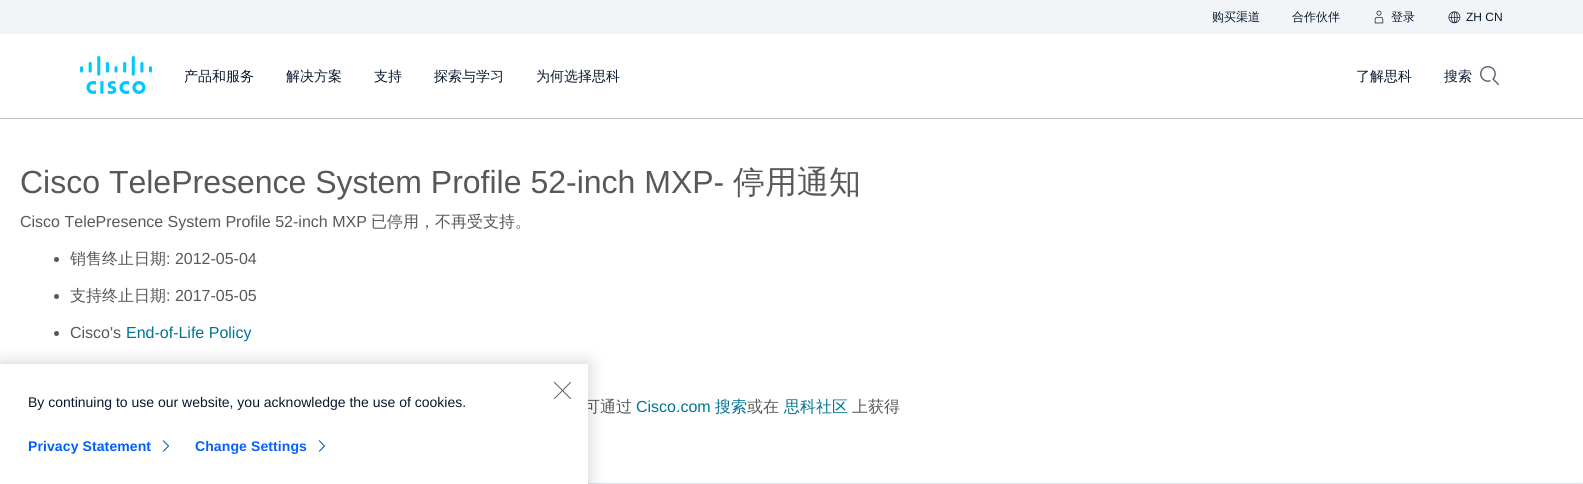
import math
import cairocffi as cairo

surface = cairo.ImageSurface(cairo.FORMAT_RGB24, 1583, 484)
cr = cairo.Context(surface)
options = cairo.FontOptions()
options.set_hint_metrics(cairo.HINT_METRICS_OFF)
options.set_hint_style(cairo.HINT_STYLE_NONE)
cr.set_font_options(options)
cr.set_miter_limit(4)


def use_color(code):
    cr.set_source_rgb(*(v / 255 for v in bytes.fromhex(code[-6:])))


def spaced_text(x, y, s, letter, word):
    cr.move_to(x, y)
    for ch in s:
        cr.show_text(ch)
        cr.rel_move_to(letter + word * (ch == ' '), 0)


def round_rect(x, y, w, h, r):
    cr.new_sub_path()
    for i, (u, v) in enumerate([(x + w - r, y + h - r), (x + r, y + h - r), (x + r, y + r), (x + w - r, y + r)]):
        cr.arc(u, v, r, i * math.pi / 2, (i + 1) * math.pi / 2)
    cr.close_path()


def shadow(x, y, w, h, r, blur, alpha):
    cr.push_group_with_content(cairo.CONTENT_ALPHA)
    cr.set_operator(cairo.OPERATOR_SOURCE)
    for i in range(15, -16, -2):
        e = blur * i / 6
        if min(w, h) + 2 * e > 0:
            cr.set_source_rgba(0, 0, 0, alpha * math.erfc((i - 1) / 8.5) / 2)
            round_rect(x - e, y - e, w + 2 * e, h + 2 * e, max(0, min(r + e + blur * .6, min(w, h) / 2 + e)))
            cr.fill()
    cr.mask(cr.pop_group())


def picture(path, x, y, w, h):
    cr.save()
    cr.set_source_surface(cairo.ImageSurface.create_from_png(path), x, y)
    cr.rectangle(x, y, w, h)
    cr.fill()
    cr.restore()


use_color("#f2f5f7")
cr.paint()
cr.select_font_face("WenQuanYi Zen Hei Medium")
cr.set_font_size(12)
use_color("#07182d")
cr.move_to(1212, 21)
cr.show_text("购买渠道")
cr.move_to(1292, 21)
cr.show_text("合作伙伴")
picture("img1.png", 1374, 10, 10, 14)
cr.move_to(1391, 21)
cr.show_text("登录")
picture("img2.png", 1448, 11, 13, 13)
cr.select_font_face("Liberation Sans")
cr.move_to(1466, 21)
cr.show_text("ZH CN")
use_color("#ffffff")
cr.rectangle(0, 34, 1583, 84)
cr.fill()
use_color("#b9c1c9")
cr.rectangle(0, 118, 1583, 1)
cr.fill()
picture("img3.png", 80, 56, 72, 38)
cr.select_font_face("WenQuanYi Zen Hei Medium")
cr.set_font_size(14)
use_color("#07182d")
cr.move_to(184, 81)
cr.show_text("产品和服务")
cr.move_to(286, 81)
cr.show_text("解决方案")
cr.move_to(374, 81)
cr.show_text("支持")
cr.move_to(434, 81)
cr.show_text("探索与学习")
cr.move_to(536, 81)
cr.show_text("为何选择思科")
cr.move_to(1356, 81)
cr.show_text("了解思科")
cr.move_to(1444, 81)
cr.show_text("搜索")
picture("img4.png", 1480, 66, 20, 20)
use_color("#000000")
shadow(0, 121, 1583, 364, 0, 2.5, 0.12)
use_color("#ffffff")
cr.rectangle(0, 119, 1583, 364)
cr.fill()
cr.select_font_face("Liberation Sans")
cr.set_font_size(32)
use_color("#58585b")
cr.move_to(20, 193)
cr.show_text("Cisco TelePresence System Profile 52-inch MXP-")
cr.select_font_face("WenQuanYi Zen Hei Medium")
cr.move_to(733, 193)
cr.show_text("停用通知")
cr.select_font_face("Liberation Sans")
cr.set_font_size(16)
cr.move_to(20, 227)
cr.show_text("Cisco TelePresence System Profile 52-inch MXP")
cr.select_font_face("WenQuanYi Zen Hei Medium")
cr.move_to(371, 227)
cr.show_text("已停用，不再受支持。")
cr.new_path()
cr.arc(56.5, 259.5, 2.5, 0, 2 * math.pi)
cr.fill()
cr.move_to(70, 264)
cr.show_text("销售终止日期")
cr.select_font_face("Liberation Sans")
cr.move_to(166, 264)
cr.show_text(": 2012-05-04")
cr.new_path()
cr.arc(56.5, 296.5, 2.5, 0, 2 * math.pi)
cr.fill()
cr.select_font_face("WenQuanYi Zen Hei Medium")
cr.move_to(70, 301)
cr.show_text("支持终止日期")
cr.select_font_face("Liberation Sans")
cr.move_to(166, 301)
cr.show_text(": 2017-05-05")
cr.new_path()
cr.arc(56.5, 333.5, 2.5, 0, 2 * math.pi)
cr.fill()
cr.move_to(70, 338)
cr.show_text("Cisco's")
use_color("#007493")
cr.move_to(126, 338)
cr.show_text("End-of-Life Policy")
cr.select_font_face("WenQuanYi Zen Hei Medium")
use_color("#58585b")
cr.move_to(584, 412)
cr.show_text("可通过")
cr.select_font_face("Liberation Sans")
use_color("#007493")
cr.move_to(636, 412)
cr.show_text("Cisco.com")
cr.select_font_face("WenQuanYi Zen Hei Medium")
cr.move_to(715, 412)
cr.show_text("搜索")
use_color("#58585b")
cr.move_to(747, 412)
cr.show_text("或在")
use_color("#007493")
cr.move_to(784, 412)
cr.show_text("思科社区")
use_color("#58585b")
cr.move_to(852, 412)
cr.show_text("上获得")
use_color("#000000")
shadow(0, 364, 588, 120, 0, 9, 0.2)
use_color("#ffffff")
cr.rectangle(0, 364, 588, 120)
cr.fill()
picture("img5.png", 553, 381, 19, 19)
cr.select_font_face("Liberation Sans")
cr.set_font_size(14)
use_color("#07182d")
cr.move_to(28, 407)
cr.show_text("By continuing to use our website, you acknowledge the use of cookies.")
cr.select_font_face("Liberation Sans", cairo.FONT_SLANT_NORMAL, cairo.FONT_WEIGHT_BOLD)
use_color("#0060ff")
spaced_text(28, 451, "Privacy Statement", 0.1, 0)
picture("img6.png", 162, 440, 7, 12)
use_color("#0a60ff")
spaced_text(195, 451, "Change Settings", 0.1, 0)
picture("img6.png", 318, 440, 7, 12)
surface.write_to_png("result.png")
